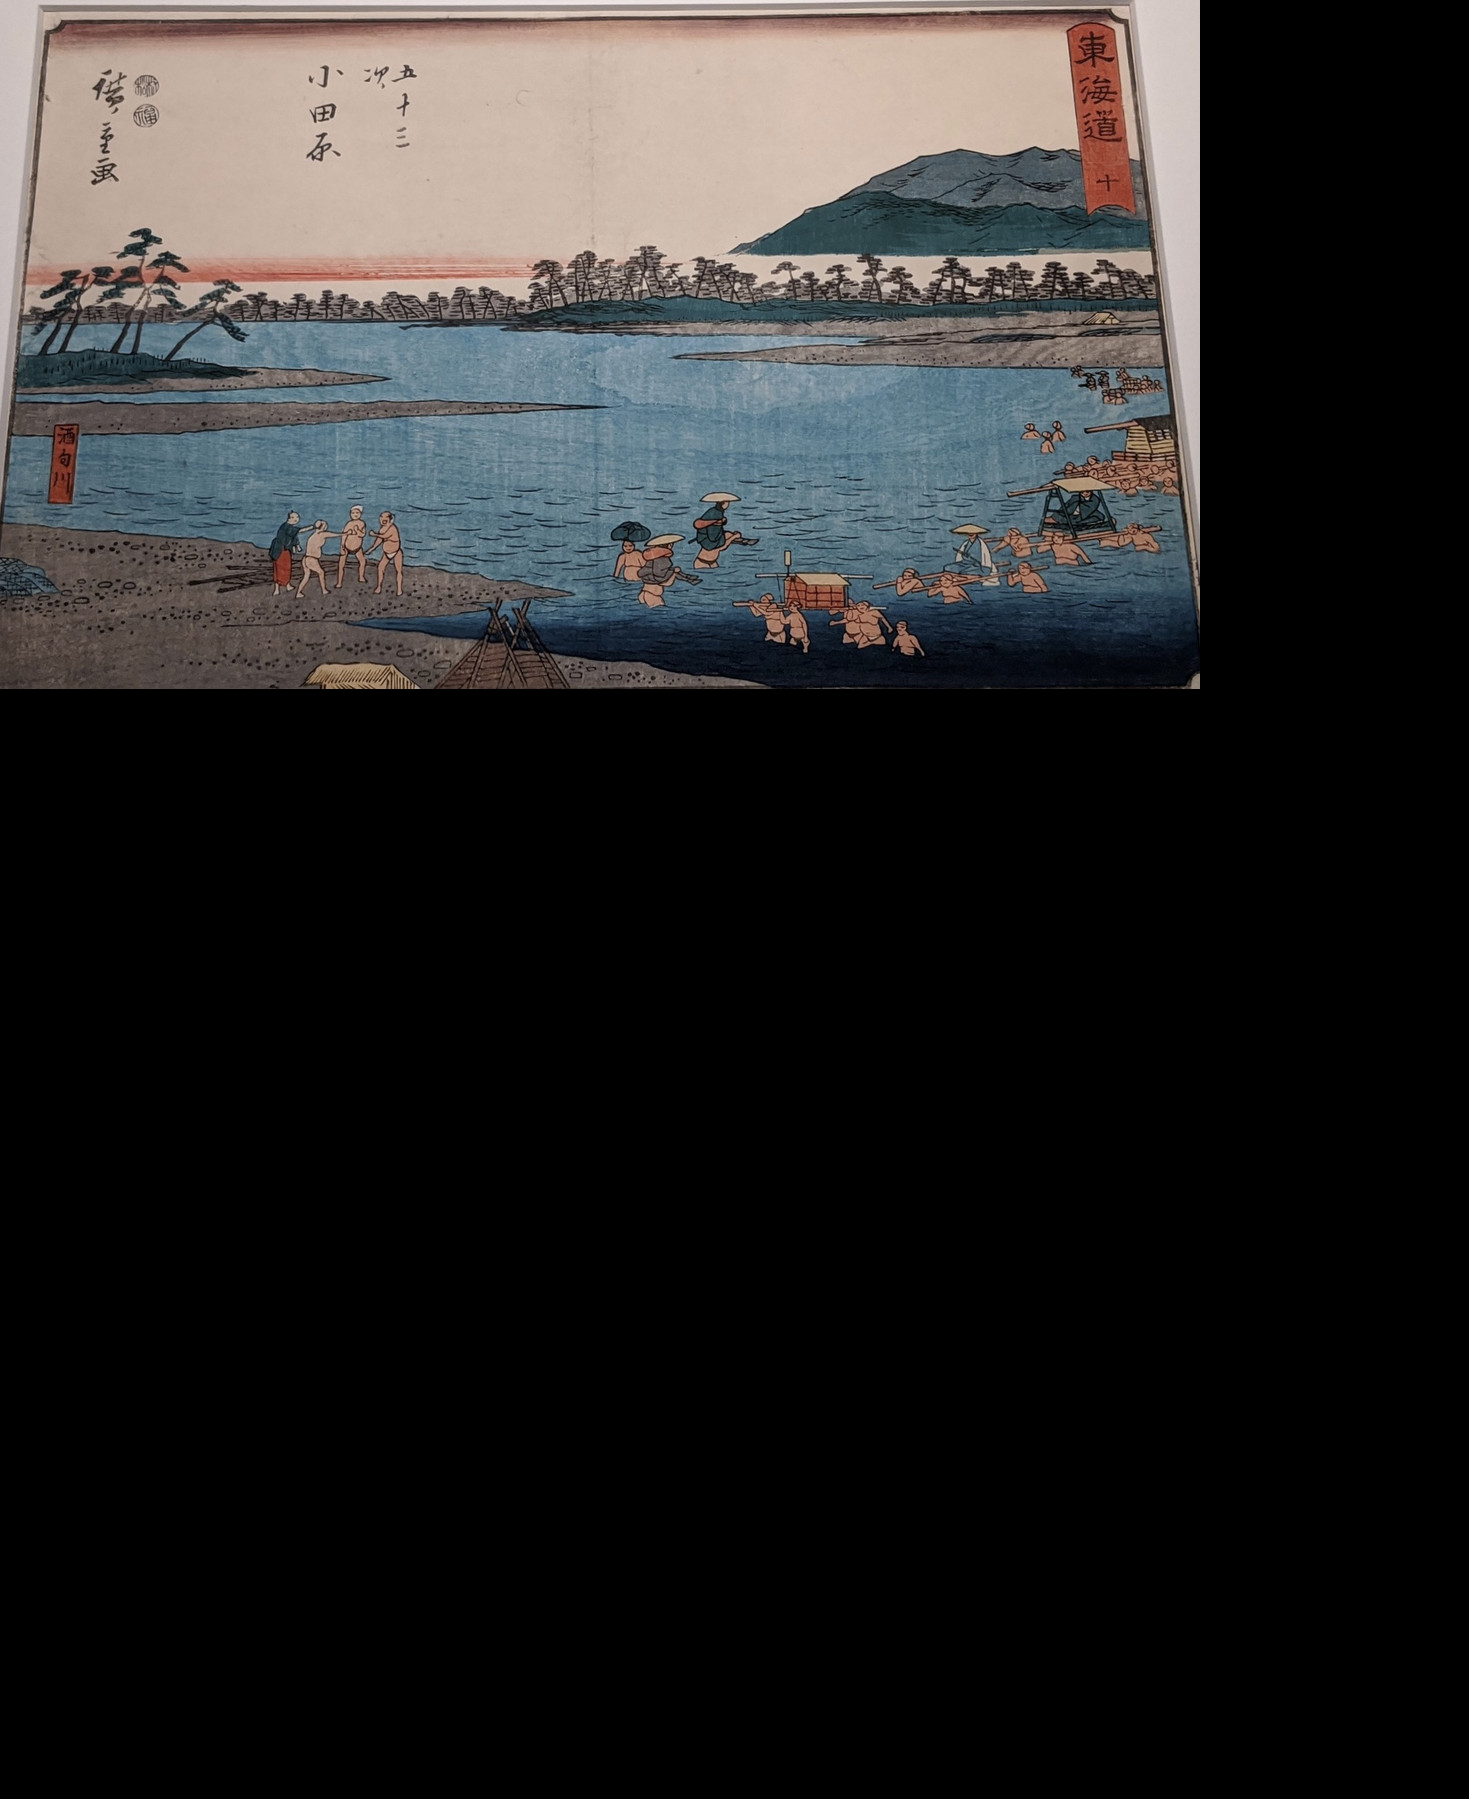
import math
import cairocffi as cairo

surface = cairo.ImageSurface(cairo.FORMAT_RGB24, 1469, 1799)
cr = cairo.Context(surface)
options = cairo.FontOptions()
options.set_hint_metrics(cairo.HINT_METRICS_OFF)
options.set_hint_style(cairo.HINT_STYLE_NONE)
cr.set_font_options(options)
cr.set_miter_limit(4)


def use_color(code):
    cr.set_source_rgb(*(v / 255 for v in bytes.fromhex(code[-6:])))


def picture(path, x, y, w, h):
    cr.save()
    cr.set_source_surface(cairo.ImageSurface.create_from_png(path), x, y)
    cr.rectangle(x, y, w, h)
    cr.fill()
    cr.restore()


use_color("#000000")
cr.paint()
picture("img1.png", 0, 0, 1200, 689)
surface.write_to_png("result.png")
